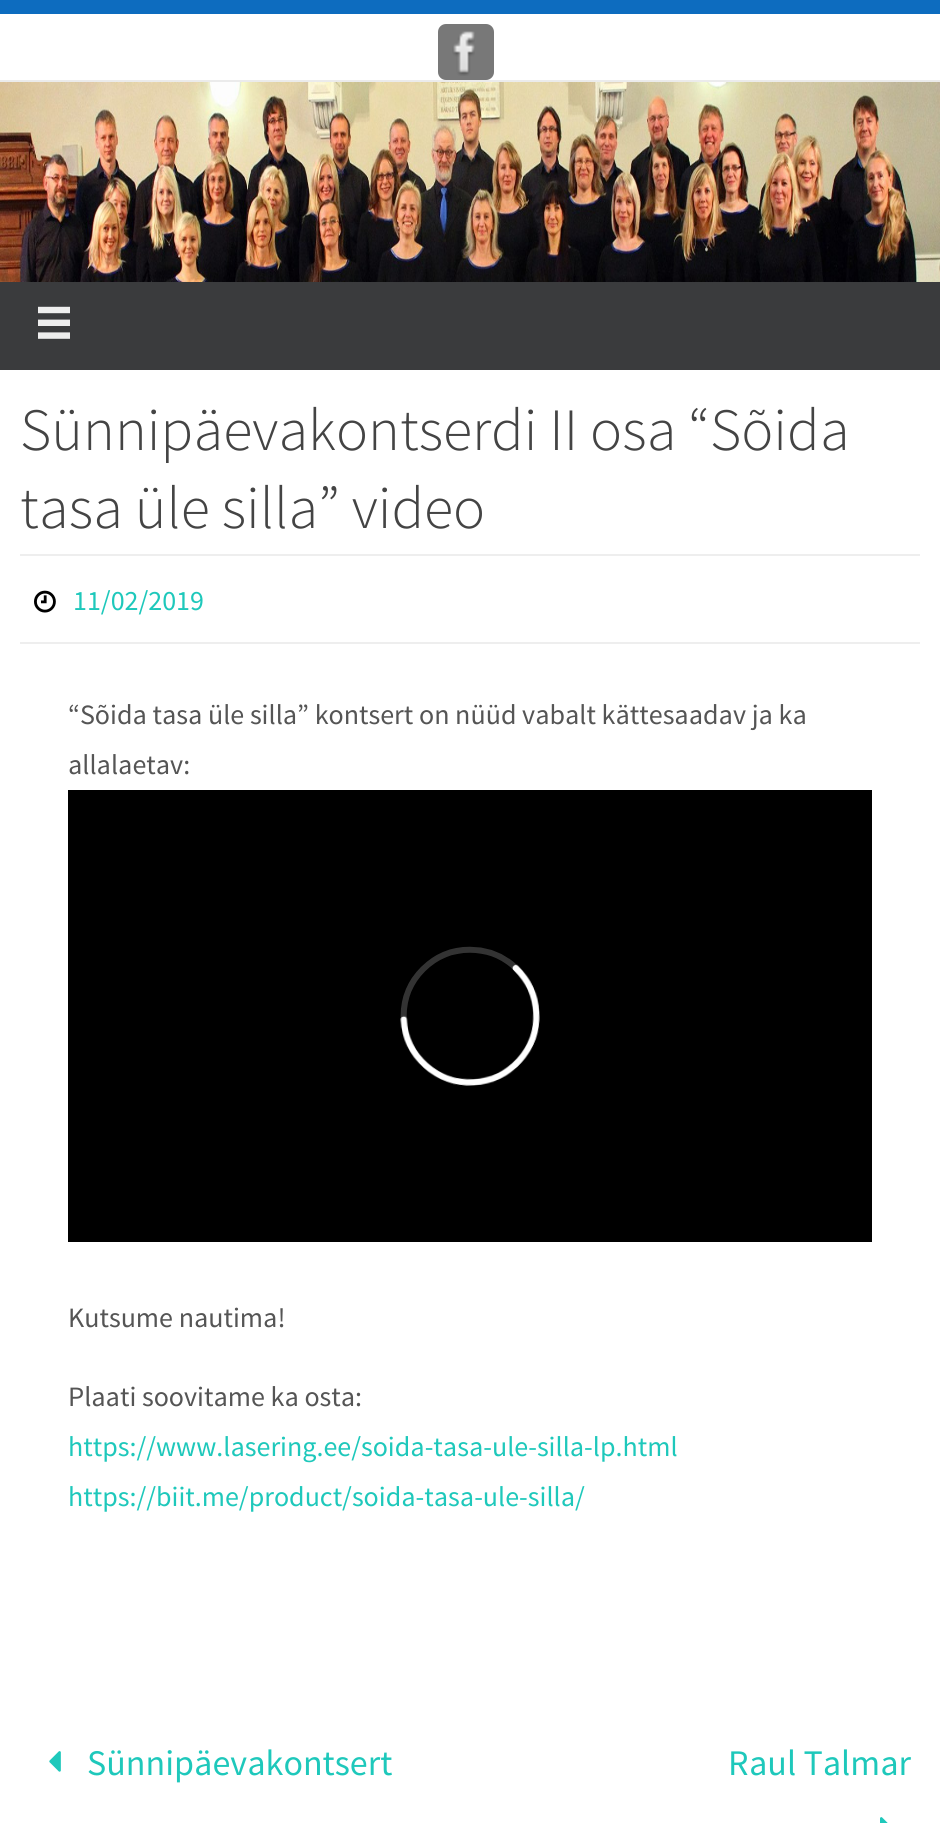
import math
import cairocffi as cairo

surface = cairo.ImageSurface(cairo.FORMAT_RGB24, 940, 1823)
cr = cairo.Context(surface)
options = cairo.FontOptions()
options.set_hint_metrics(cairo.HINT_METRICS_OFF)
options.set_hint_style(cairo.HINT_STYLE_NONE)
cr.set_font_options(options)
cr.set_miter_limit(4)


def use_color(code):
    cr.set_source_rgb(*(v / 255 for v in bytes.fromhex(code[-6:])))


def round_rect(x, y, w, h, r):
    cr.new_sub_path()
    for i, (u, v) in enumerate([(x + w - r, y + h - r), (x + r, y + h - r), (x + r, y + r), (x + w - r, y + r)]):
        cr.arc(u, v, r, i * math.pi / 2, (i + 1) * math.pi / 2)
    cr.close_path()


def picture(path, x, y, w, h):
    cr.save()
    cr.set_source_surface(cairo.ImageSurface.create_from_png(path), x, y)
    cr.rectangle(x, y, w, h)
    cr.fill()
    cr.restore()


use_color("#0d6cbf")
cr.paint()
use_color("#ffffff")
cr.rectangle(0, 14, 940, 66)
cr.fill()
use_color("#ebebeb")
cr.rectangle(0, 80, 940, 2)
cr.fill()
use_color("#787878")
round_rect(438, 24, 56, 56, 8)
cr.fill()
picture("img1.png", 452, 31, 23, 45)
picture("img2.png", 0, 82, 940, 200)
use_color("#3a3b3d")
cr.rectangle(0, 282, 940, 88)
cr.fill()
picture("img3.png", 38, 306, 32, 33)
use_color("#ffffff")
cr.rectangle(0, 370, 940, 1453)
cr.fill()
cr.select_font_face("Source Sans Pro Light")
cr.set_font_size(60)
use_color("#444444")
cr.move_to(20, 450)
cr.show_text("Sünnipäevakontserdi II osa “Sõida")
cr.move_to(20, 528)
cr.show_text("tasa üle silla” video")
use_color("#eeeeee")
cr.rectangle(20, 554, 900, 2)
cr.fill()
cr.rectangle(20, 642, 900, 2)
cr.fill()
picture("img4.png", 34, 590, 22, 23)
cr.select_font_face("Source Sans Pro")
cr.set_font_size(28)
use_color("#1ec8bb")
cr.move_to(73, 610)
cr.show_text("11/02/2019")
use_color("#555555")
cr.move_to(68, 724)
cr.show_text("“Sõida tasa üle silla” kontsert on nüüd vabalt kättesaadav ja ka")
cr.move_to(68, 774)
cr.show_text("allalaetav:")
picture("img5.png", 68, 790, 804, 452)
cr.move_to(68, 1327)
cr.show_text("Kutsume nautima!")
cr.move_to(68, 1406)
cr.show_text("Plaati soovitame ka osta:")
use_color("#1ec8bb")
cr.move_to(68, 1456)
cr.show_text("https://www.lasering.ee/soida-tasa-ule-silla-lp.html")
cr.move_to(68, 1506)
cr.show_text("https://biit.me/product/soida-tasa-ule-silla/")
picture("img6.png", 49, 1751, 12, 21)
cr.set_font_size(36)
cr.move_to(87, 1775)
cr.show_text("Sünnipäevakontsert")
cr.move_to(728, 1775)
cr.show_text("Raul Talmar")
picture("img7.png", 880, 1817, 8, 6)
surface.write_to_png("result.png")
